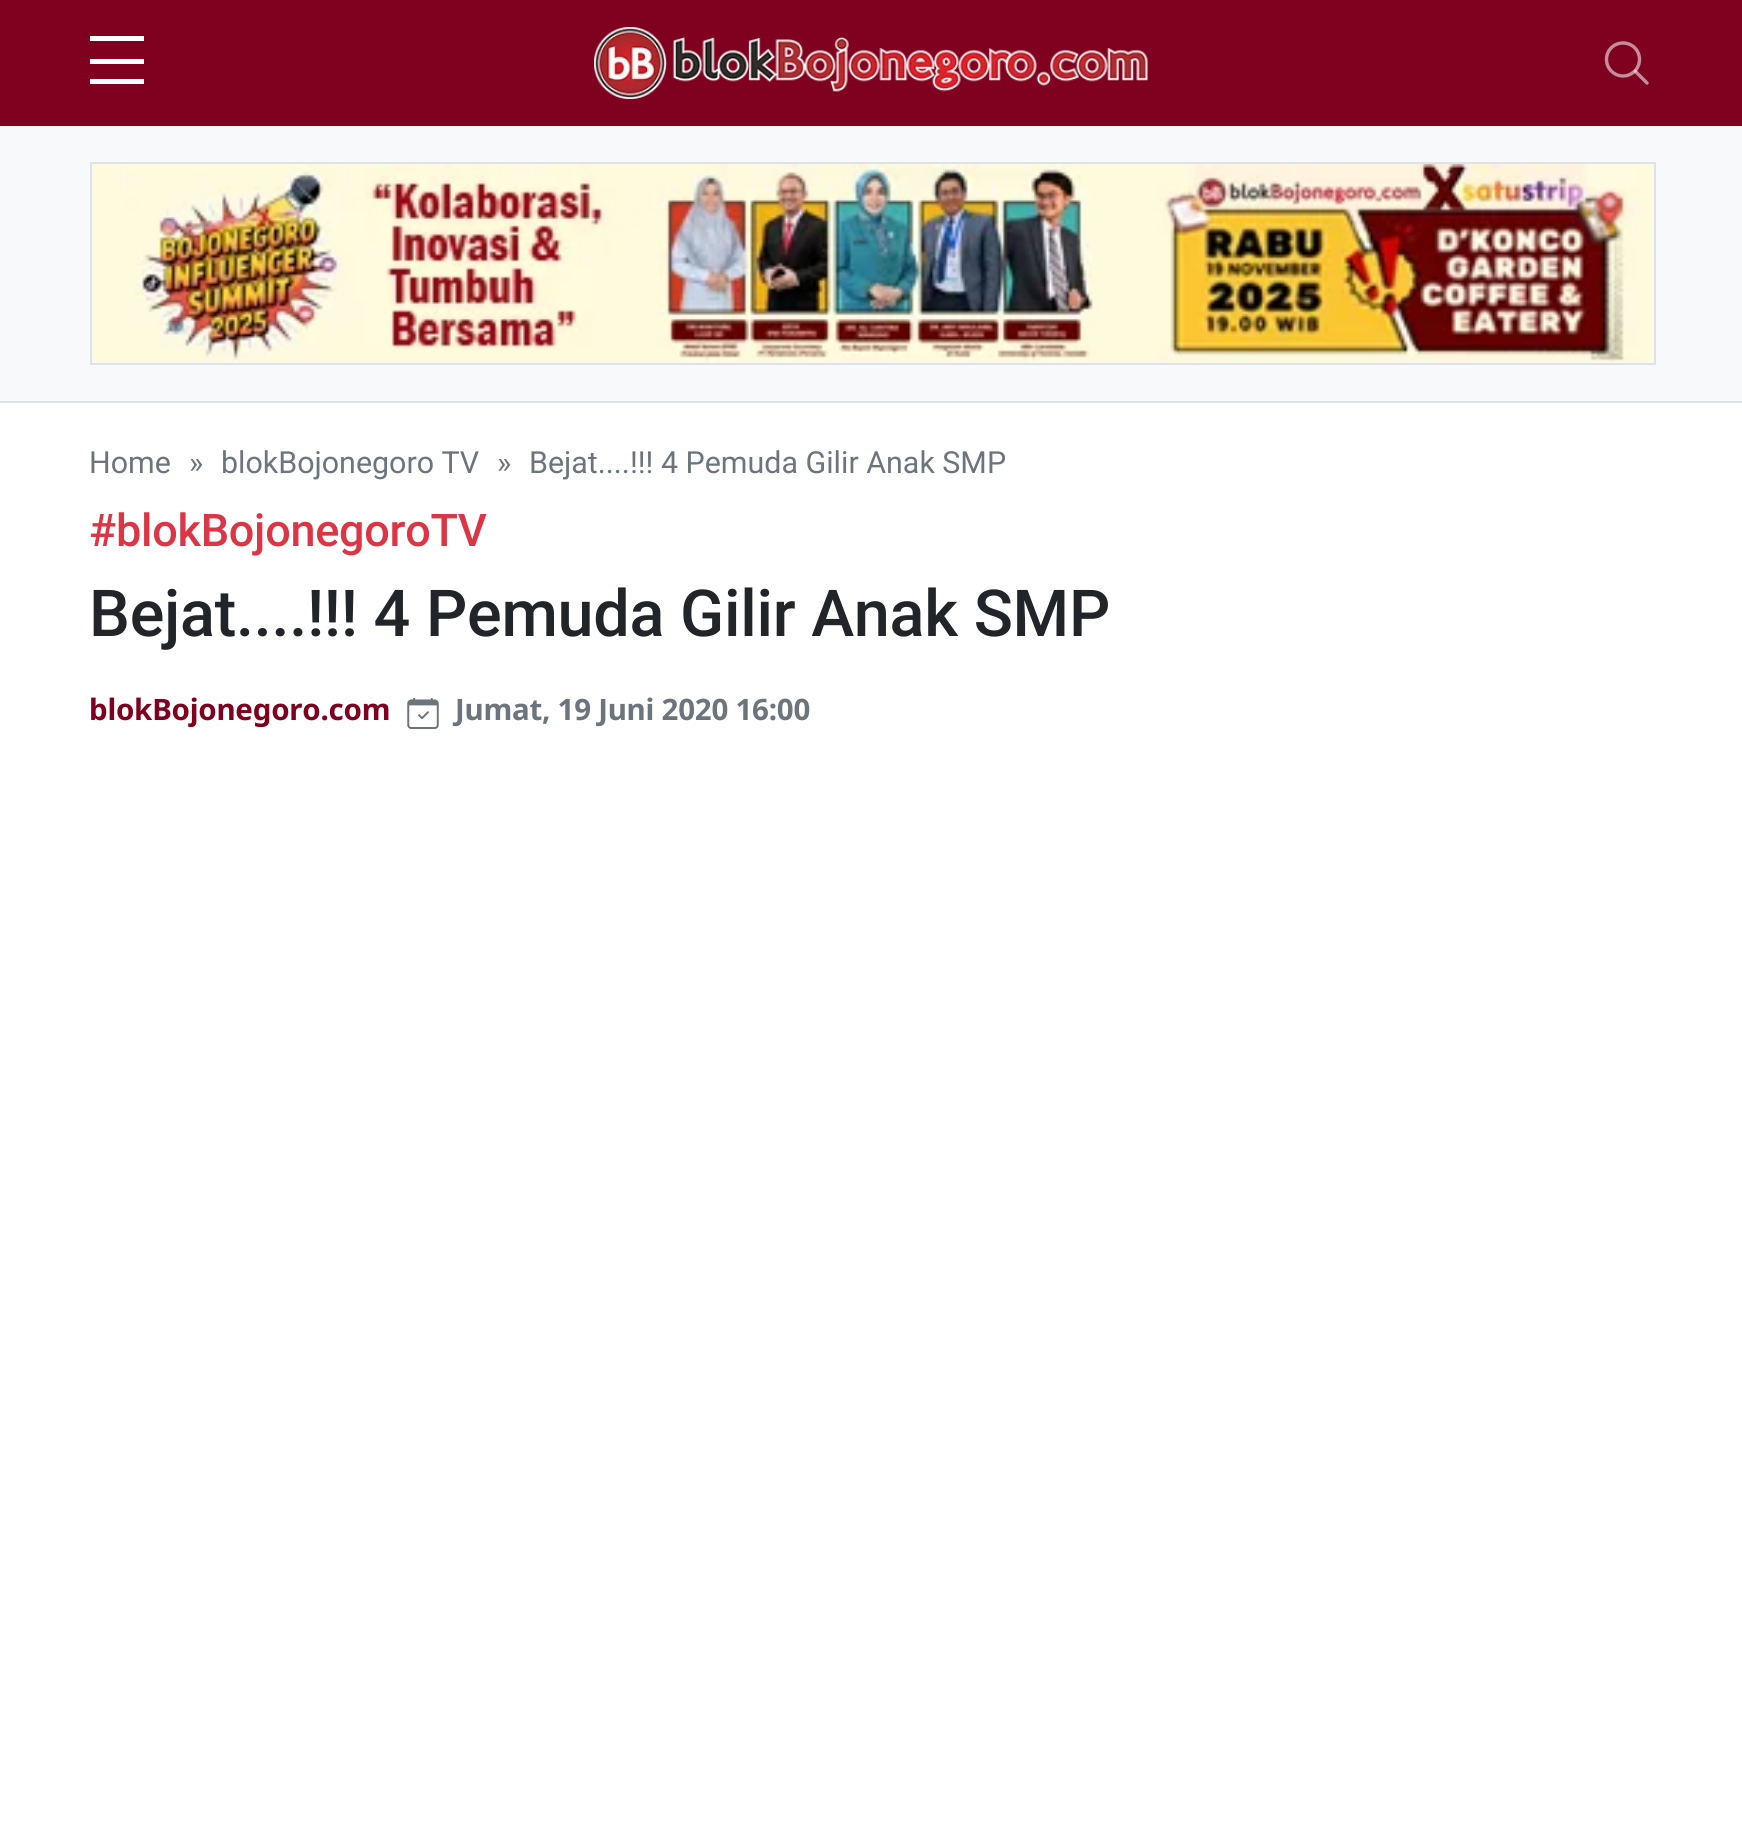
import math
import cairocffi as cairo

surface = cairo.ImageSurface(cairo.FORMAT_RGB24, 1742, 1834)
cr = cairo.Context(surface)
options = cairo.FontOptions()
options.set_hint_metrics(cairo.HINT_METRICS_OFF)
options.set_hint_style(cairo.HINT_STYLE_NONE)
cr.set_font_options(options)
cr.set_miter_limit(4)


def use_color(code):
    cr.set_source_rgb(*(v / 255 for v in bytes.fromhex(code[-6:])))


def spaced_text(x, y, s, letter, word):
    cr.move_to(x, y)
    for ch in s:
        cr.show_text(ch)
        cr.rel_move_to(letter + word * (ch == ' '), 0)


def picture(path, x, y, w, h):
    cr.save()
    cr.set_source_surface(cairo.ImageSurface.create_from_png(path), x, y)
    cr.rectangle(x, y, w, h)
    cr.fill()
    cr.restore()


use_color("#ffffff")
cr.paint()
use_color("#f8f9fa")
cr.rectangle(0, 126, 1742, 275)
cr.fill()
use_color("#800020")
cr.rectangle(0, 0, 1742, 126)
cr.fill()
use_color("#ffffff")
cr.rectangle(90, 36, 54, 5)
cr.fill()
cr.rectangle(90, 59, 54, 5)
cr.fill()
cr.rectangle(90, 79, 54, 5)
cr.fill()
picture("img1.png", 594, 27, 554, 72)
cr.new_path()
cr.move_to(1623, 43)
cr.curve_to(1614, 43, 1606.5, 50, 1606.5, 59.5)
cr.curve_to(1606.5, 68.5, 1614, 76, 1623, 76)
cr.curve_to(1632, 76, 1639.5, 68.5, 1639.5, 59.5)
cr.curve_to(1639.5, 50, 1632, 43, 1623, 43)
cr.close_path()
use_color("#c68c9b")
cr.set_line_width(3.4)
cr.stroke()
cr.new_path()
cr.move_to(1635.5, 71.5)
cr.line_to(1647, 83)
cr.set_source_rgba(1, 1, 1, 0.55)
cr.set_line_cap(cairo.LINE_CAP_ROUND)
cr.stroke()
cr.rectangle(91, 163, 1564, 201)
use_color("#dee2e6")
cr.set_line_width(2)
cr.set_line_cap(cairo.LINE_CAP_BUTT)
cr.stroke()
picture("img2.png", 92, 164, 1562, 199)
cr.rectangle(0, 401, 1742, 2)
cr.fill()
cr.select_font_face("Roboto")
cr.set_font_size(30.4)
use_color("#6c757d")
cr.move_to(89, 473)
cr.show_text("Home")
cr.move_to(189, 473)
cr.show_text("»")
cr.move_to(221, 473)
cr.show_text("blokBojonegoro TV")
cr.move_to(497, 473)
cr.show_text("»")
cr.move_to(529, 473)
cr.show_text("Bejat....!!! 4 Pemuda Gilir Anak SMP")
cr.select_font_face("Roboto Medium")
cr.set_font_size(45)
use_color("#dc3545")
spaced_text(89, 546, "#blokBojonegoroTV", -0.25, 0)
cr.set_font_size(64.75)
use_color("#212529")
spaced_text(89, 636, "Bejat....!!! 4 Pemuda Gilir Anak SMP", -0.25, 0)
cr.select_font_face("Noto Sans", cairo.FONT_SLANT_NORMAL, cairo.FONT_WEIGHT_BOLD)
cr.set_font_size(29.5)
use_color("#800020")
spaced_text(89, 720, "blokBojonegoro.com", -0.25, 0)
picture("img3.png", 407, 698, 32, 31)
use_color("#6c757d")
spaced_text(455, 720, "Jumat, 19 Juni 2020 16:00", -0.25, 0)
surface.write_to_png("result.png")
